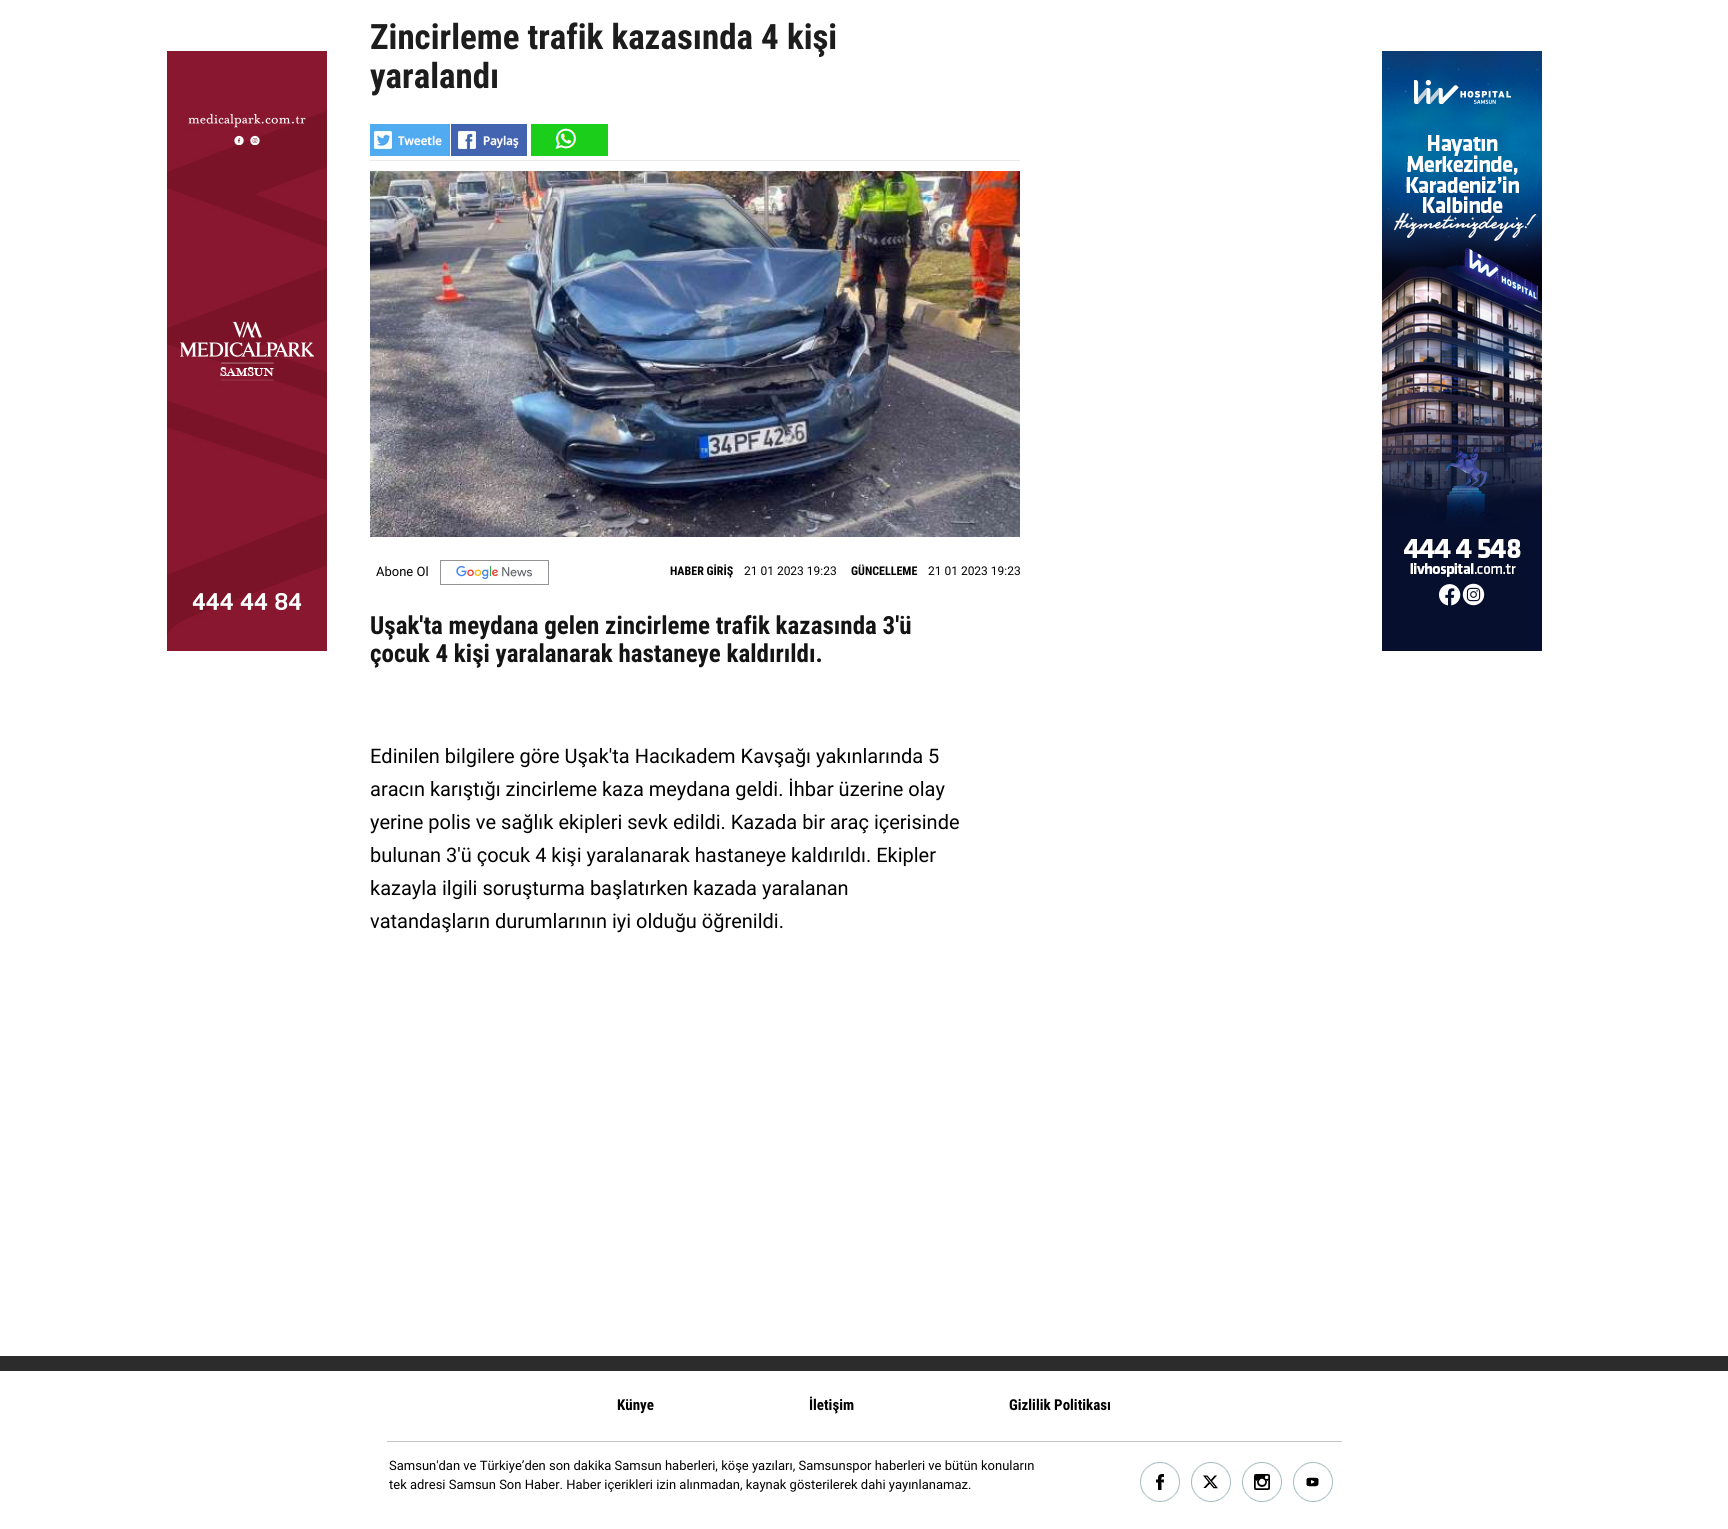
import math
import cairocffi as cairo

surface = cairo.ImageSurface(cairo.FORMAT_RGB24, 1728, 1529)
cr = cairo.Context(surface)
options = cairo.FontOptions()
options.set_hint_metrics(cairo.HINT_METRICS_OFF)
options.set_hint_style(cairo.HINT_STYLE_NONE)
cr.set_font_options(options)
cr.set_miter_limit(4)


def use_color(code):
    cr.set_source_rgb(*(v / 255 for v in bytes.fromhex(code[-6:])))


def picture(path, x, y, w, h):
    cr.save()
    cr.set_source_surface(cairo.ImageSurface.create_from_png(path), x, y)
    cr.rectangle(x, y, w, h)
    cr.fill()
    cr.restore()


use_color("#ffffff")
cr.paint()
picture("img1.png", 167, 51, 160, 600)
cr.select_font_face("Roboto Condensed", cairo.FONT_SLANT_NORMAL, cairo.FONT_WEIGHT_BOLD)
cr.set_font_size(35)
use_color("#1d1d1d")
cr.move_to(370, 49)
cr.show_text("Zincirleme trafik kazasında 4 kişi")
cr.move_to(370, 88)
cr.show_text("yaralandı")
use_color("#e9e9e9")
cr.rectangle(370, 160, 650, 1)
cr.fill()
picture("img2.png", 370, 124, 80, 32)
picture("img3.png", 451, 124, 76, 32)
use_color("#1ace1a")
cr.rectangle(576, 124, 32, 32)
cr.fill()
picture("img4.png", 528, 124, 48, 32)
picture("img5.png", 370, 171, 650, 366)
picture("img6.png", 456, 566, 76, 14)
cr.rectangle(440.5, 560.5, 108, 24)
use_color("#939393")
cr.set_line_width(1)
cr.stroke()
cr.select_font_face("Roboto")
cr.set_font_size(13)
use_color("#000000")
cr.move_to(376, 576)
cr.show_text("Abone Ol")
cr.select_font_face("Roboto Condensed", cairo.FONT_SLANT_NORMAL, cairo.FONT_WEIGHT_BOLD)
cr.set_font_size(12)
cr.move_to(670, 575)
cr.show_text("HABER GİRİŞ")
cr.select_font_face("Roboto")
cr.move_to(744, 575)
cr.show_text("21 01 2023 19:23")
cr.select_font_face("Roboto Condensed", cairo.FONT_SLANT_NORMAL, cairo.FONT_WEIGHT_BOLD)
cr.move_to(851, 575)
cr.show_text("GÜNCELLEME")
cr.select_font_face("Roboto")
cr.move_to(928, 575)
cr.show_text("21 01 2023 19:23")
cr.select_font_face("Roboto Condensed", cairo.FONT_SLANT_NORMAL, cairo.FONT_WEIGHT_BOLD)
cr.set_font_size(25)
use_color("#141414")
cr.move_to(370, 634)
cr.show_text("Uşak'ta meydana gelen zincirleme trafik kazasında 3'ü")
cr.move_to(370, 662)
cr.show_text("çocuk 4 kişi yaralanarak hastaneye kaldırıldı.")
cr.select_font_face("Roboto")
cr.set_font_size(20)
use_color("#000000")
cr.move_to(370, 763)
cr.show_text("Edinilen bilgilere göre Uşak'ta Hacıkadem Kavşağı yakınlarında 5")
cr.move_to(370, 796)
cr.show_text("aracın karıştığı zincirleme kaza meydana geldi. İhbar üzerine olay")
cr.move_to(370, 829)
cr.show_text("yerine polis ve sağlık ekipleri sevk edildi. Kazada bir araç içerisinde")
cr.move_to(370, 862)
cr.show_text("bulunan 3'ü çocuk 4 kişi yaralanarak hastaneye kaldırıldı. Ekipler")
cr.move_to(370, 895)
cr.show_text("kazayla ilgili soruşturma başlatırken kazada yaralanan")
cr.move_to(370, 928)
cr.show_text("vatandaşların durumlarının iyi olduğu öğrenildi.")
picture("img7.png", 1382, 51, 160, 600)
use_color("#2c2c2c")
cr.rectangle(0, 1356, 1728, 15)
cr.fill()
use_color("#c5c5c5")
cr.rectangle(387, 1441, 955, 1)
cr.fill()
cr.select_font_face("Roboto Condensed", cairo.FONT_SLANT_NORMAL, cairo.FONT_WEIGHT_BOLD)
cr.set_font_size(15)
use_color("#000000")
cr.move_to(617, 1410)
cr.show_text("Künye")
cr.move_to(809, 1410)
cr.show_text("İletişim")
cr.move_to(1009, 1410)
cr.show_text("Gizlilik Politikası")
cr.select_font_face("Roboto")
cr.set_font_size(13)
cr.move_to(389, 1470)
cr.show_text("Samsun'dan ve Türkiye’den son dakika Samsun haberleri, köşe yazıları, Samsunspor haberleri ve bütün konuların")
cr.move_to(389, 1489)
cr.show_text("tek adresi Samsun Son Haber. Haber içerikleri izin alınmadan, kaynak gösterilerek dahi yayınlanamaz.")
picture("img8.png", 1140, 1462, 40, 40)
picture("img9.png", 1191, 1462, 40, 40)
picture("img10.png", 1242, 1462, 40, 40)
picture("img11.png", 1293, 1462, 40, 40)
surface.write_to_png("result.png")
